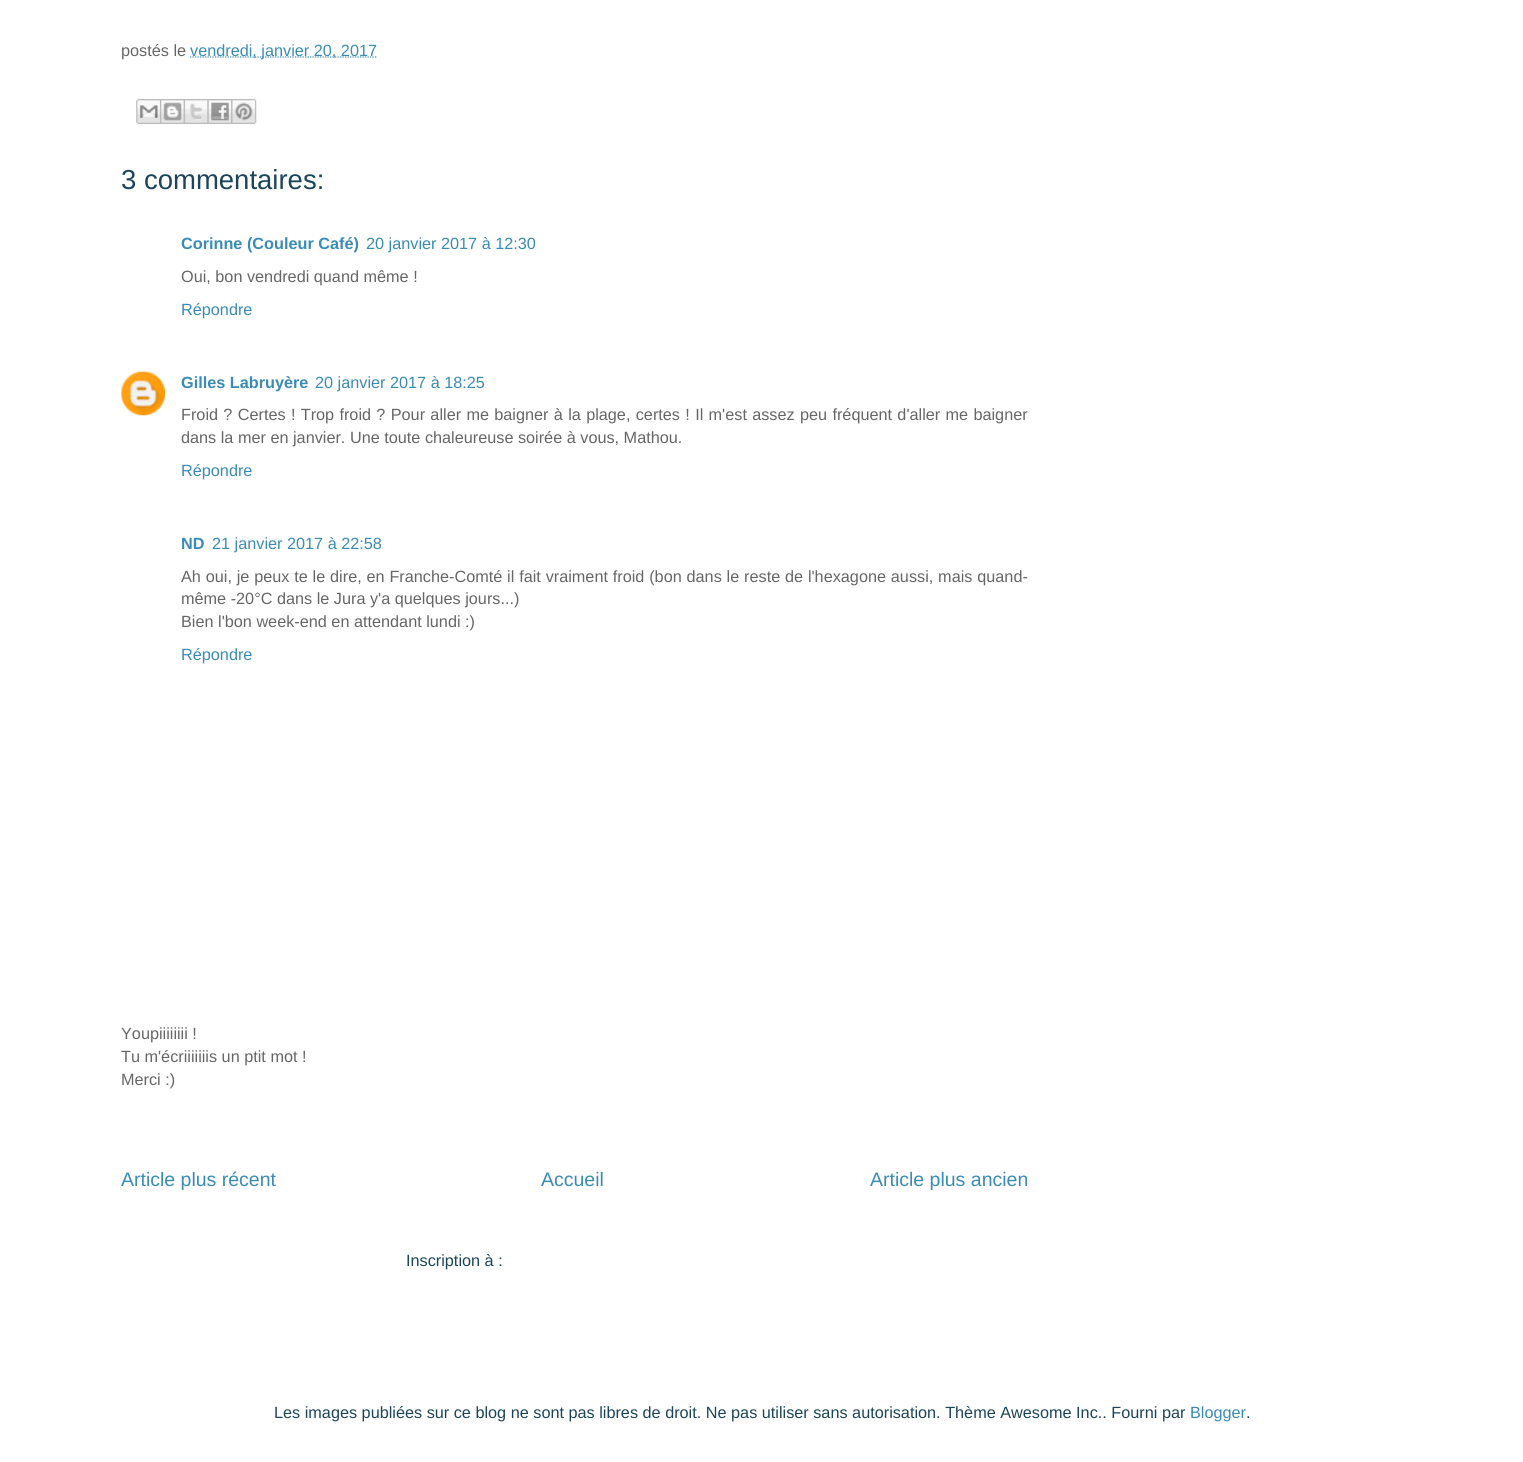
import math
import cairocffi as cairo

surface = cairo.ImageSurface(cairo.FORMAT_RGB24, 1523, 1462)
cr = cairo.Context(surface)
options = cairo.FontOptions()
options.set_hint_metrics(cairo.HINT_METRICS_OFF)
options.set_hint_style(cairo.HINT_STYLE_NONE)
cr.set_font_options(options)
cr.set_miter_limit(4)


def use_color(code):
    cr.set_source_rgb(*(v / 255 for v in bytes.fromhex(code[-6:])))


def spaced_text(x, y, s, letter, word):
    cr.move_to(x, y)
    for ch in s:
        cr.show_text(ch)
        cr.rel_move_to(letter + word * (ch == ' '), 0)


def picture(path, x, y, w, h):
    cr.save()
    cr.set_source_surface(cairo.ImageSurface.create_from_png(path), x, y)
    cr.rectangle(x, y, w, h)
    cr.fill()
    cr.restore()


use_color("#ffffff")
cr.paint()
cr.select_font_face("Liberation Sans")
cr.set_font_size(16.25)
use_color("#666666")
cr.move_to(121, 56)
cr.show_text("postés le")
cr.new_path()
cr.move_to(190, 57)
cr.line_to(377, 57)
use_color("#3a8bb5")
cr.set_line_width(1.2)
cr.set_dash([1.25, 1.25])
cr.stroke()
cr.move_to(190, 56)
cr.show_text("vendredi, janvier 20, 2017")
picture("img1.png", 136, 99, 24, 25)
picture("img2.png", 160, 99, 24, 25)
picture("img3.png", 183, 99, 25, 25)
picture("img4.png", 207, 99, 25, 25)
picture("img5.png", 231, 99, 26, 25)
cr.set_font_size(27.5)
use_color("#1c455a")
cr.move_to(121, 189)
cr.show_text("3 commentaires:")
cr.select_font_face("Liberation Sans", cairo.FONT_SLANT_NORMAL, cairo.FONT_WEIGHT_BOLD)
cr.set_font_size(16.25)
use_color("#3a8bb5")
cr.move_to(181, 249)
cr.show_text("Corinne (Couleur Café)")
cr.select_font_face("Liberation Sans")
cr.move_to(366, 249)
cr.show_text("20 janvier 2017 à 12:30")
use_color("#666666")
cr.move_to(181, 282)
cr.show_text("Oui, bon vendredi quand même !")
use_color("#3a8bb5")
cr.move_to(181, 315)
cr.show_text("Répondre")
picture("img6.png", 121, 371, 44, 45)
cr.select_font_face("Liberation Sans", cairo.FONT_SLANT_NORMAL, cairo.FONT_WEIGHT_BOLD)
cr.move_to(181, 388)
cr.show_text("Gilles Labruyère")
cr.select_font_face("Liberation Sans")
cr.move_to(315, 388)
cr.show_text("20 janvier 2017 à 18:25")
use_color("#666666")
spaced_text(181, 420, "Froid ? Certes ! Trop froid ? Pour aller me baigner à la plage, certes ! Il m'est assez peu fréquent d'aller me baigner", 0, 0.8)
cr.move_to(181, 443)
cr.show_text("dans la mer en janvier. Une toute chaleureuse soirée à vous, Mathou.")
use_color("#3a8bb5")
cr.move_to(181, 476)
cr.show_text("Répondre")
cr.select_font_face("Liberation Sans", cairo.FONT_SLANT_NORMAL, cairo.FONT_WEIGHT_BOLD)
cr.move_to(181, 549)
cr.show_text("ND")
cr.select_font_face("Liberation Sans")
cr.move_to(212, 549)
cr.show_text("21 janvier 2017 à 22:58")
use_color("#666666")
spaced_text(181, 582, "Ah oui, je peux te le dire, en Franche-Comté il fait vraiment froid (bon dans le reste de l'hexagone aussi, mais quand-", 0, 0.3)
cr.move_to(181, 604)
cr.show_text("même -20°C dans le Jura y'a quelques jours...)")
cr.move_to(181, 627)
cr.show_text("Bien l'bon week-end en attendant lundi :)")
use_color("#3a8bb5")
cr.move_to(181, 660)
cr.show_text("Répondre")
use_color("#666666")
cr.move_to(121, 1039)
cr.show_text("Youpiiiiiiii !")
cr.move_to(121, 1062)
cr.show_text("Tu m'écriiiiiiis un ptit mot !")
cr.move_to(121, 1085)
cr.show_text("Merci :)")
cr.set_font_size(19.5)
use_color("#3a8bb5")
cr.move_to(121, 1186)
cr.show_text("Article plus récent")
cr.move_to(541, 1186)
cr.show_text("Accueil")
cr.move_to(870, 1186)
cr.show_text("Article plus ancien")
cr.set_font_size(16.25)
use_color("#1c455a")
cr.move_to(406, 1266)
cr.show_text("Inscription à :")
cr.move_to(274, 1418)
cr.show_text("Les images publiées sur ce blog ne sont pas libres de droit. Ne pas utiliser sans autorisation. Thème Awesome Inc.. Fourni par")
use_color("#3a8bb5")
cr.move_to(1190, 1418)
cr.show_text("Blogger")
use_color("#1c455a")
cr.move_to(1246, 1418)
cr.show_text(".")
surface.write_to_png("result.png")
